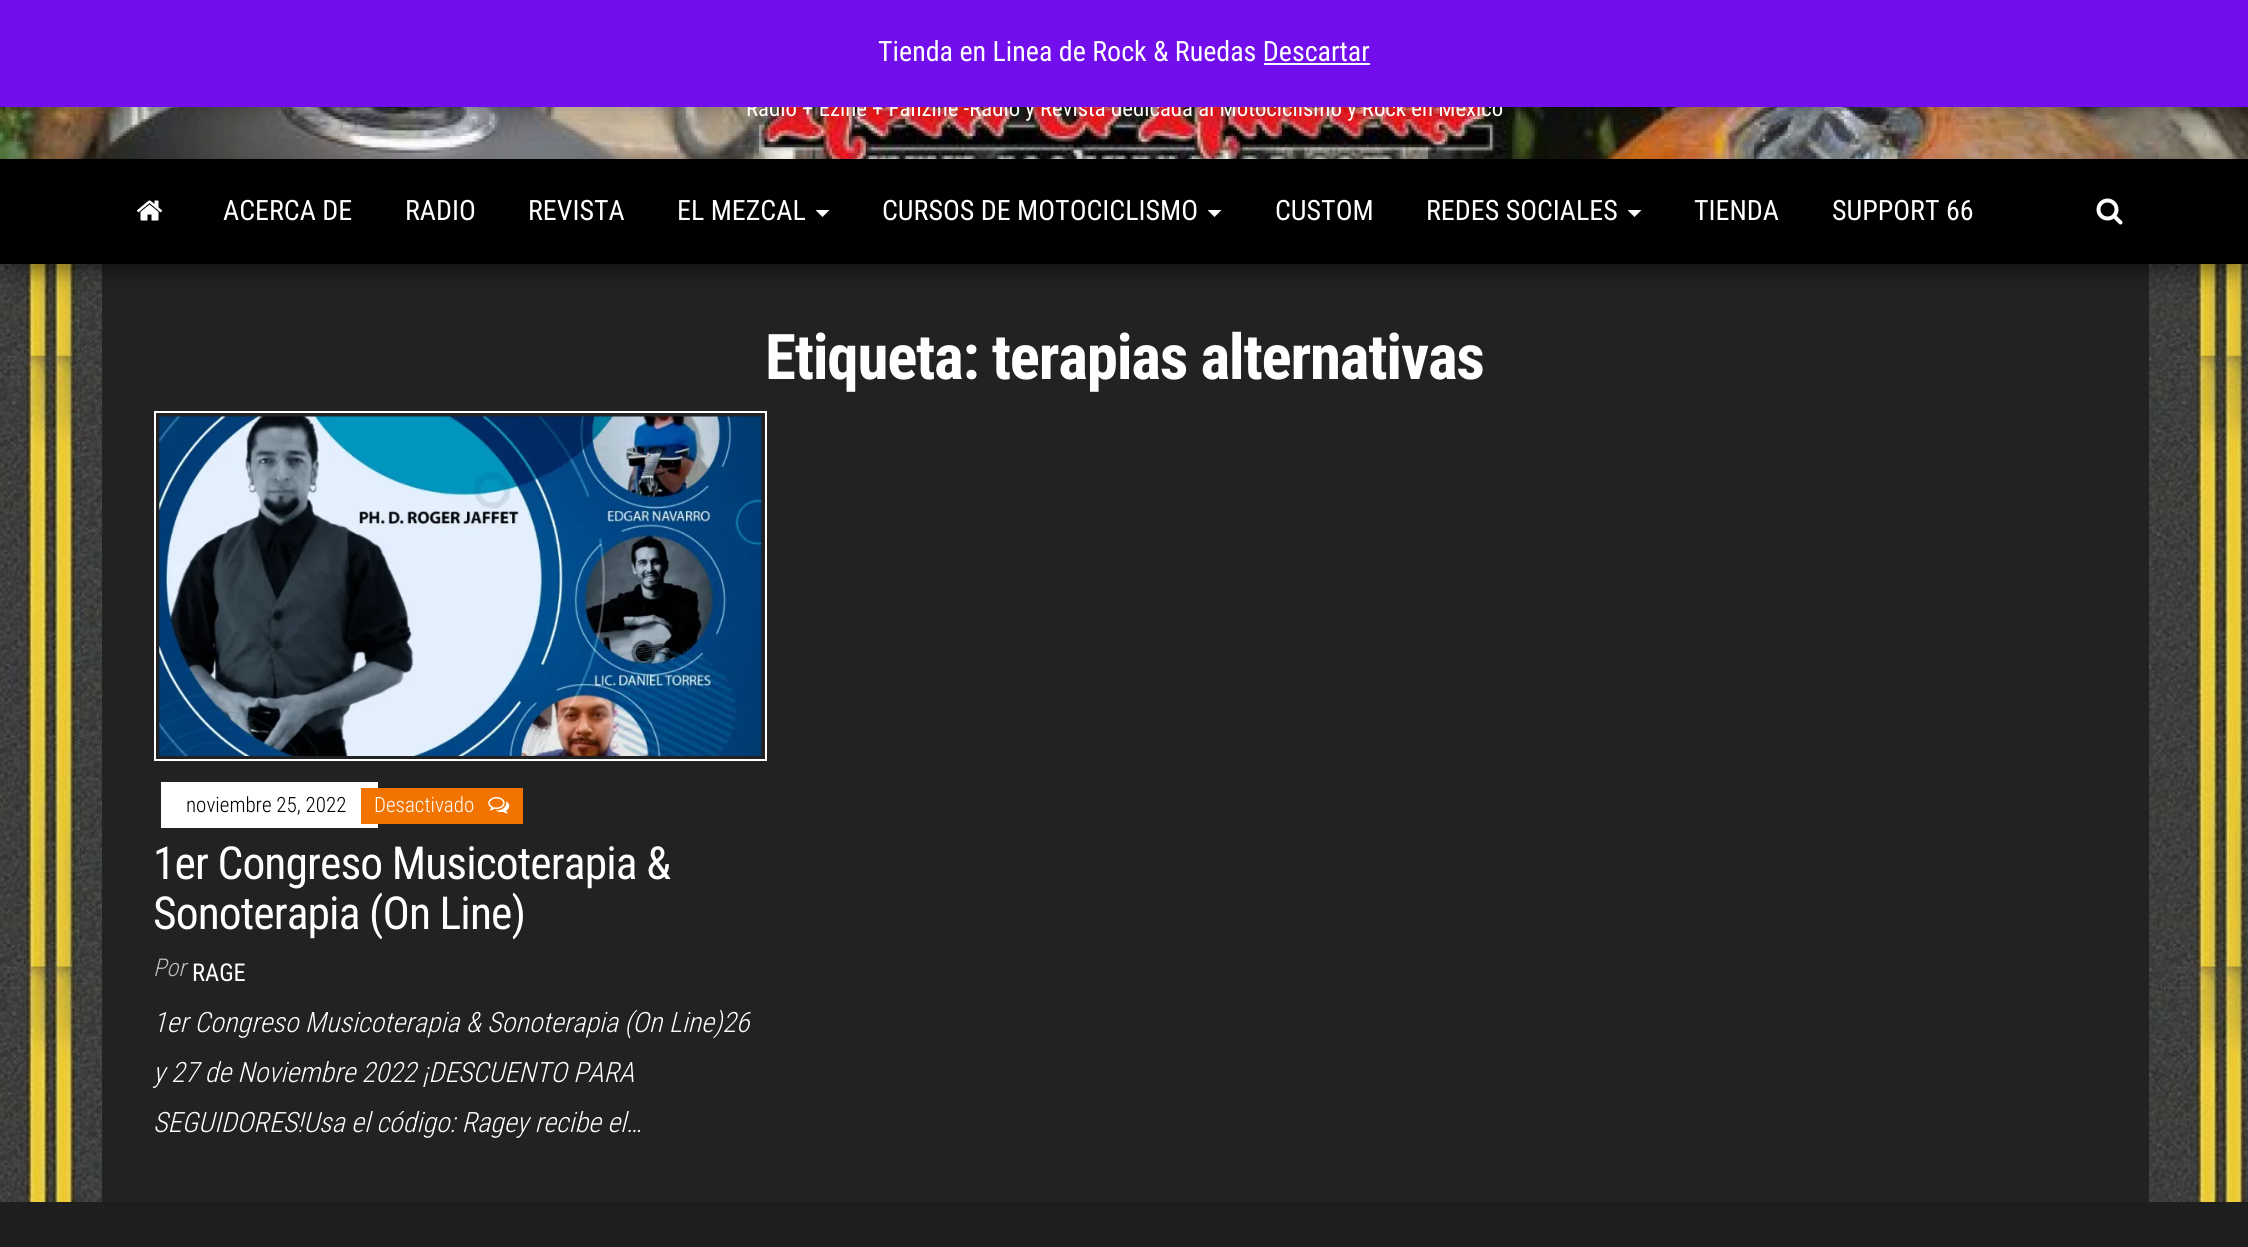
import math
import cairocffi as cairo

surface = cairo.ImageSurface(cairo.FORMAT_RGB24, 2248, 1247)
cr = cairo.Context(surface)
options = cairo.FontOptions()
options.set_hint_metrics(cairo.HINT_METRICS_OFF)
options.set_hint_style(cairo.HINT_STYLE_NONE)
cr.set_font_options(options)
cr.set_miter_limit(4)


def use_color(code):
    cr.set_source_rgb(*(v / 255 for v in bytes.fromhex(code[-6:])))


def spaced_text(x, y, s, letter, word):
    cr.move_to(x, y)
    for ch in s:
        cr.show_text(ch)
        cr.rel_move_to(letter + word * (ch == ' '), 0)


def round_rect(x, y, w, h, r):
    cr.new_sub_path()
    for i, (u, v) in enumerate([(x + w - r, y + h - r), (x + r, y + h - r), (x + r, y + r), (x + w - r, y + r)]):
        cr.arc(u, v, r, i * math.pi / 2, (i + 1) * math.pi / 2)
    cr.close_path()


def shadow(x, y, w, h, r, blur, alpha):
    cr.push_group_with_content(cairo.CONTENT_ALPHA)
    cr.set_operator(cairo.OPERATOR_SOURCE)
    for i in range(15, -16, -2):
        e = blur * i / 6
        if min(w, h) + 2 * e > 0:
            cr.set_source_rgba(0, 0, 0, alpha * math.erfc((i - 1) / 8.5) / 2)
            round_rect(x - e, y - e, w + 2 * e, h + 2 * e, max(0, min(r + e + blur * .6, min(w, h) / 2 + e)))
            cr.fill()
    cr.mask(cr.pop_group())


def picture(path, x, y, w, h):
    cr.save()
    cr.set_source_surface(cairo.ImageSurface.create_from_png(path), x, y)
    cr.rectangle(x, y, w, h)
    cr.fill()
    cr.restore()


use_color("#ffffff")
cr.paint()
picture("img1.png", 0, 264, 2248, 938)
picture("img2.png", 0, 107, 2248, 52)
use_color("#000000")
shadow(0, 2, 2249, 107, 0, 14, 0.2)
use_color("#222222")
cr.rectangle(102, 264, 2047, 938)
cr.fill()
use_color("#000000")
shadow(0, 165, 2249, 105, 0, 17.5, 0.12)
cr.select_font_face("Roboto Condensed")
cr.set_font_size(22.75)
use_color("#ffffff")
cr.move_to(746, 116)
cr.show_text("Radio + Ezine + Fanzine -Radio y Revista dedicada al Motociclismo y Rock en México")
use_color("#720eec")
cr.rectangle(0, 0, 2248, 107)
cr.fill()
cr.set_font_size(28)
use_color("#ffffff")
cr.move_to(878, 61)
cr.show_text("Tienda en Linea de Rock & Ruedas Descartar")
use_color("#fcfbfe")
cr.rectangle(1264, 63, 106, 2)
cr.fill()
use_color("#000000")
shadow(9, 182, 2231, 88, 0, 9, 0.2)
shadow(21, 198, 2207, 63, 0, 17.5, 0.42)
use_color("#000000")
cr.rectangle(0, 159, 2248, 105)
cr.fill()
picture("img3.png", 136, 200, 27, 21)
use_color("#ffffff")
cr.move_to(223, 220)
cr.show_text("ACERCA DE")
cr.move_to(405, 220)
cr.show_text("RADIO")
cr.move_to(528, 220)
cr.show_text("REVISTA")
cr.move_to(677, 220)
cr.show_text("EL MEZCAL")
cr.new_path()
cr.move_to(815.5, 210)
cr.line_to(829.5, 210)
cr.line_to(822.5, 217)
cr.close_path()
cr.fill()
cr.move_to(882, 220)
cr.show_text("CURSOS DE MOTOCICLISMO")
cr.new_path()
cr.move_to(1207.5, 210)
cr.line_to(1221.5, 210)
cr.line_to(1214.5, 217)
cr.close_path()
cr.fill()
cr.move_to(1275, 220)
cr.show_text("CUSTOM")
cr.move_to(1426, 220)
cr.show_text("REDES SOCIALES")
cr.new_path()
cr.move_to(1627.5, 210)
cr.line_to(1641.5, 210)
cr.line_to(1634.5, 217)
cr.close_path()
cr.fill()
cr.move_to(1694, 220)
cr.show_text("TIENDA")
cr.move_to(1832, 220)
cr.show_text("SUPPORT 66")
picture("img4.png", 2096, 198, 27, 27)
cr.select_font_face("Roboto Condensed", cairo.FONT_SLANT_NORMAL, cairo.FONT_WEIGHT_BOLD)
cr.set_font_size(63)
spaced_text(765, 379, "Etiqueta: terapias alternativas", -1.25, 0)
cr.rectangle(155, 412, 611, 348)
cr.stroke()
picture("img5.png", 159, 416, 603, 340)
cr.rectangle(161, 782, 217, 46)
cr.fill()
cr.select_font_face("Roboto Condensed Light")
cr.set_font_size(21)
use_color("#000000")
cr.move_to(186, 812)
cr.show_text("noviembre 25, 2022")
use_color("#f27300")
cr.rectangle(361, 788, 162, 36)
cr.fill()
use_color("#ffffff")
cr.move_to(374, 812)
cr.show_text("Desactivado")
picture("img6.png", 488, 797, 22, 17)
cr.select_font_face("Roboto Condensed")
cr.set_font_size(45.5)
spaced_text(153, 879, "1er Congreso Musicoterapia &", -0.9, 0)
spaced_text(153, 929, "Sonoterapia (On Line)", -0.9, 0)
cr.select_font_face("Roboto Condensed Light", cairo.FONT_SLANT_ITALIC)
cr.set_font_size(24.5)
use_color("#bdbdbd")
cr.move_to(153, 976)
cr.show_text("Por")
cr.select_font_face("Roboto Condensed")
use_color("#ffffff")
cr.move_to(192, 981)
cr.show_text("RAGE")
cr.select_font_face("Roboto Condensed Light", cairo.FONT_SLANT_ITALIC)
cr.set_font_size(28)
cr.move_to(153, 1032)
cr.show_text("1er Congreso Musicoterapia & Sonoterapia (On Line)26")
cr.move_to(153, 1082)
cr.show_text("y 27 de Noviembre 2022 ¡DESCUENTO PARA")
cr.move_to(153, 1132)
cr.show_text("SEGUIDORES!Usa el código: Ragey recibe el…")
use_color("#1e1e1e")
cr.rectangle(0, 1202, 2248, 45)
cr.fill()
surface.write_to_png("result.png")
